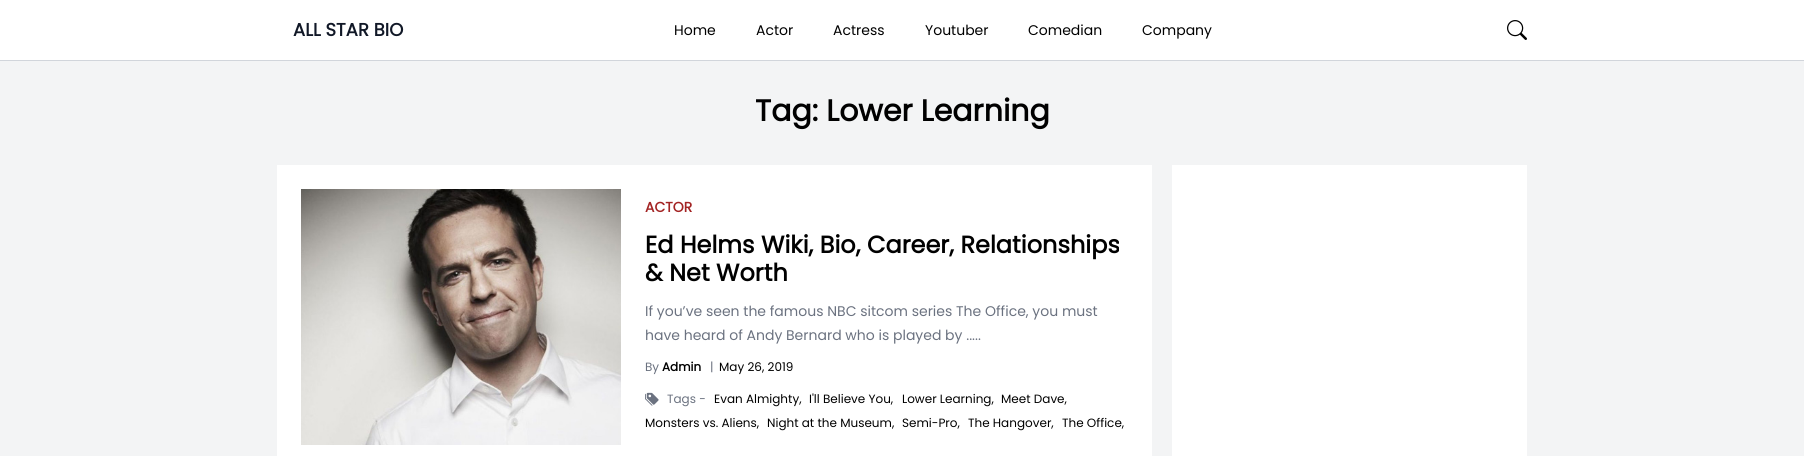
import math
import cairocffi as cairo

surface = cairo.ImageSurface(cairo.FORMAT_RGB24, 1804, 456)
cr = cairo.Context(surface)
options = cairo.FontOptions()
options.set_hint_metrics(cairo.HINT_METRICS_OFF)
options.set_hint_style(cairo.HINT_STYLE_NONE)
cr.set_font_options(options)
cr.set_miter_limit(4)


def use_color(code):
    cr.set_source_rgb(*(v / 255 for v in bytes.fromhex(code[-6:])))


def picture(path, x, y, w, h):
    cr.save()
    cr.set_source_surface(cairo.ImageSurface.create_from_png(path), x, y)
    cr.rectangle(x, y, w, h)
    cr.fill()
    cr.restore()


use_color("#ffffff")
cr.paint()
use_color("#d1d5db")
cr.rectangle(0, 60, 1804, 1)
cr.fill()
cr.select_font_face("Poppins", cairo.FONT_SLANT_NORMAL, cairo.FONT_WEIGHT_BOLD)
cr.set_font_size(18)
use_color("#111827")
cr.move_to(293, 36)
cr.show_text("ALL STAR BIO")
cr.select_font_face("Poppins")
cr.set_font_size(14)
use_color("#000000")
cr.move_to(674, 35)
cr.show_text("Home")
cr.move_to(756, 35)
cr.show_text("Actor")
cr.move_to(833, 35)
cr.show_text("Actress")
cr.move_to(925, 35)
cr.show_text("Youtuber")
cr.move_to(1028, 35)
cr.show_text("Comedian")
cr.move_to(1142, 35)
cr.show_text("Company")
picture("img1.png", 1507, 20, 20, 20)
use_color("#f3f4f5")
cr.rectangle(0, 61, 1804, 395)
cr.fill()
cr.select_font_face("Poppins", cairo.FONT_SLANT_NORMAL, cairo.FONT_WEIGHT_BOLD)
cr.set_font_size(30)
use_color("#000000")
cr.move_to(755, 121)
cr.show_text("Tag: Lower Learning")
use_color("#ffffff")
cr.rectangle(277, 165, 875, 291)
cr.fill()
picture("img2.png", 301, 189, 320, 256)
cr.set_font_size(14)
use_color("#a32424")
cr.move_to(645, 212)
cr.show_text("ACTOR")
cr.set_font_size(24)
use_color("#000000")
cr.move_to(645, 253)
cr.show_text("Ed Helms Wiki, Bio, Career, Relationships")
cr.move_to(645, 281)
cr.show_text("& Net Worth")
cr.select_font_face("Poppins")
cr.set_font_size(14)
use_color("#6b7280")
cr.move_to(645, 316)
cr.show_text("If you’ve seen the famous NBC sitcom series The Office, you must")
cr.move_to(645, 340)
cr.show_text("have heard of Andy Bernard who is played by .....")
cr.set_font_size(12)
cr.move_to(645, 371)
cr.show_text("By")
cr.select_font_face("Poppins", cairo.FONT_SLANT_NORMAL, cairo.FONT_WEIGHT_BOLD)
use_color("#000000")
cr.move_to(662, 371)
cr.show_text("Admin")
cr.select_font_face("Poppins")
use_color("#6b7280")
cr.move_to(710, 371)
cr.show_text("|")
use_color("#000000")
cr.move_to(719, 371)
cr.show_text("May 26, 2019")
picture("img3.png", 645, 392, 14, 14)
use_color("#6b7280")
cr.move_to(667, 403)
cr.show_text("Tags -")
use_color("#000000")
cr.move_to(714, 403)
cr.show_text("Evan Almighty,")
cr.move_to(809, 403)
cr.show_text("I'll Believe You,")
cr.move_to(902, 403)
cr.show_text("Lower Learning,")
cr.move_to(1001, 403)
cr.show_text("Meet Dave,")
cr.move_to(645, 427)
cr.show_text("Monsters vs. Aliens,")
cr.move_to(767, 427)
cr.show_text("Night at the Museum,")
cr.move_to(902, 427)
cr.show_text("Semi-Pro,")
cr.move_to(968, 427)
cr.show_text("The Hangover,")
cr.move_to(1062, 427)
cr.show_text("The Office,")
use_color("#ffffff")
cr.rectangle(1172, 165, 355, 291)
cr.fill()
surface.write_to_png("result.png")
